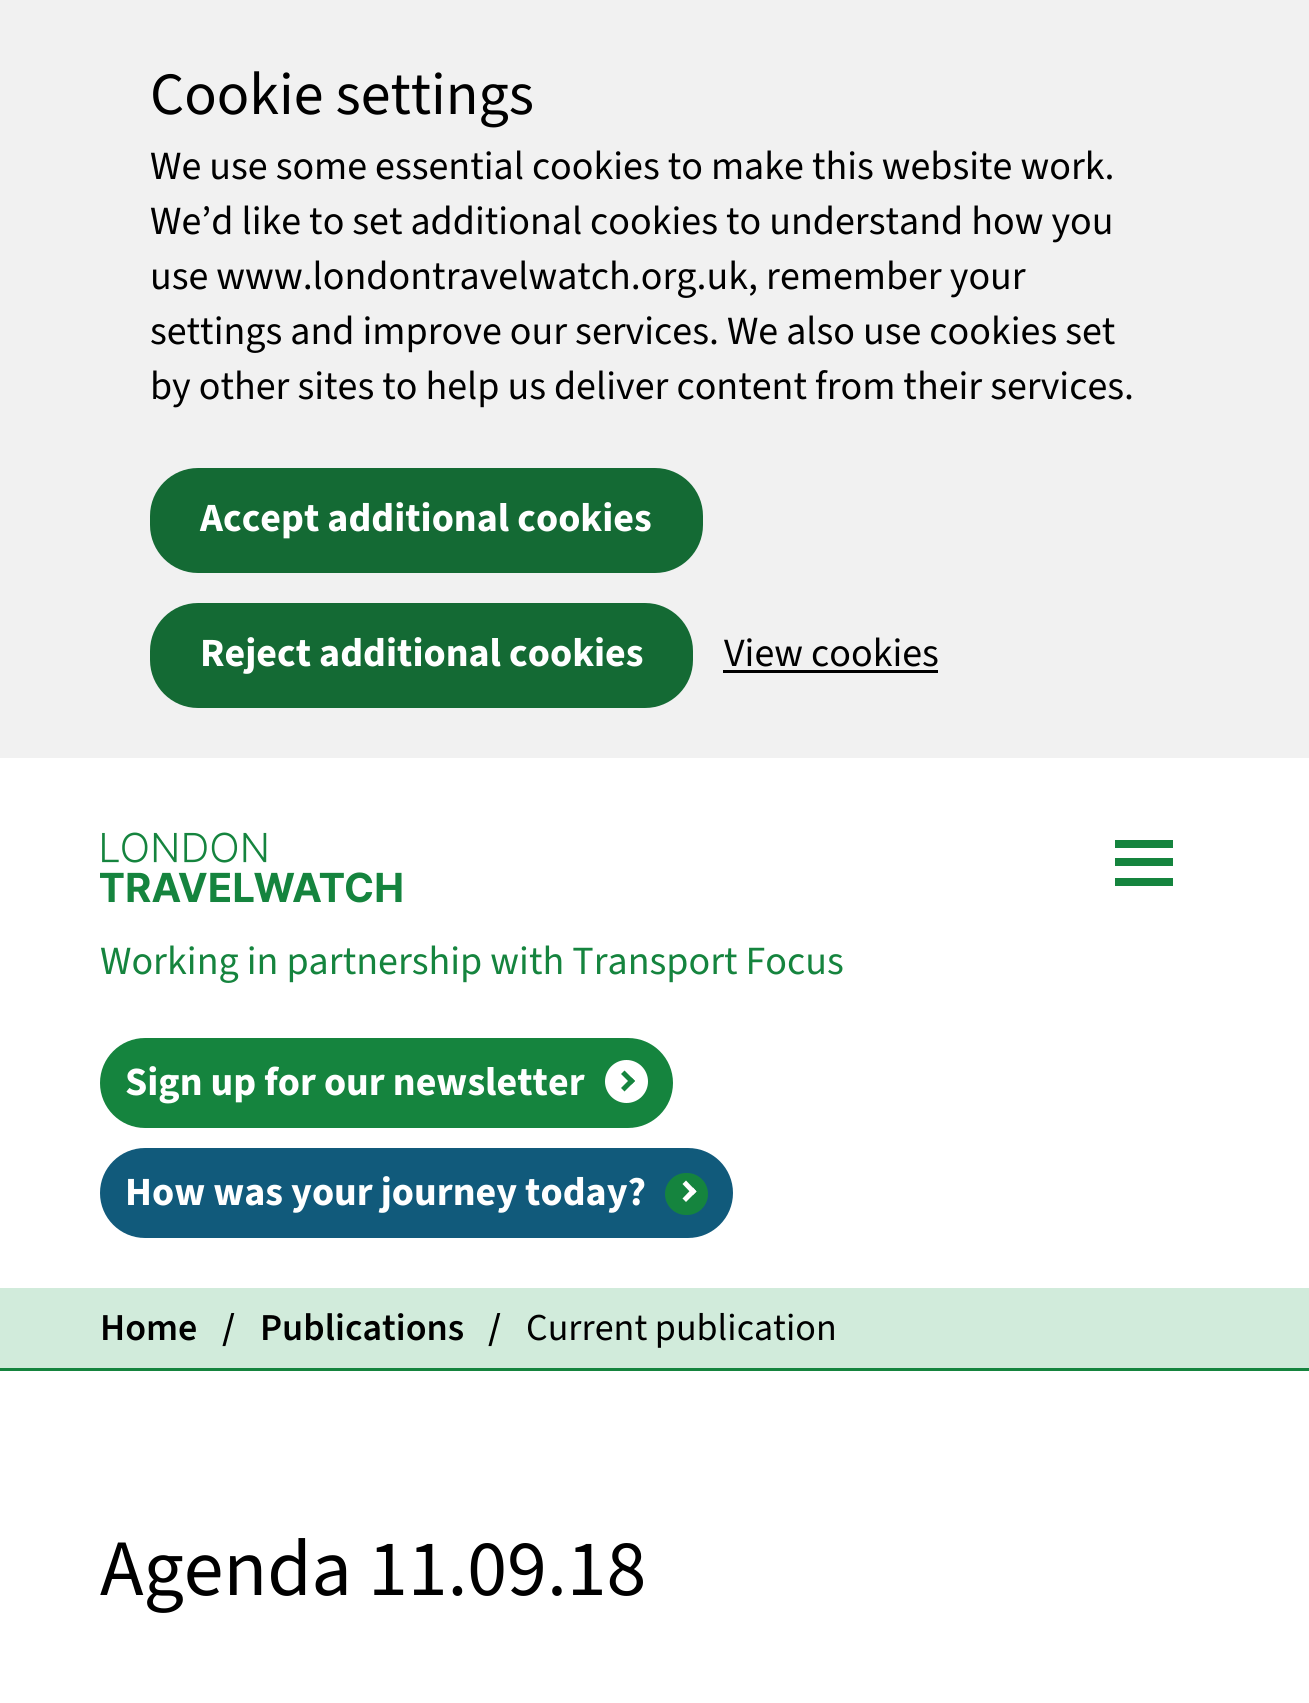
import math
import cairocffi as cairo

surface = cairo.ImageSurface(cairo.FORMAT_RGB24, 1309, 1703)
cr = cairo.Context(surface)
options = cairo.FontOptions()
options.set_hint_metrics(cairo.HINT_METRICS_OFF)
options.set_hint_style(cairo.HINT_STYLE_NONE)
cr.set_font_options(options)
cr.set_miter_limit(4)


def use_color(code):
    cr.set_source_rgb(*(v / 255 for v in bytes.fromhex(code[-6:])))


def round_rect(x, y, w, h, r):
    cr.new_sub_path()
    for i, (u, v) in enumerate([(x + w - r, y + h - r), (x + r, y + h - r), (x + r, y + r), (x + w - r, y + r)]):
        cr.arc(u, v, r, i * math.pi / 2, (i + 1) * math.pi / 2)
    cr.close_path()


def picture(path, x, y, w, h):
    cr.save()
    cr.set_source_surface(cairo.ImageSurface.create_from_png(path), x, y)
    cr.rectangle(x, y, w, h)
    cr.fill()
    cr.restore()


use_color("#ffffff")
cr.paint()
use_color("#f1f1f1")
cr.rectangle(0, 0, 1309, 758)
cr.fill()
cr.select_font_face("Source Sans 3 ExtraLight")
cr.set_font_size(60)
use_color("#000000")
cr.move_to(150, 114)
cr.show_text("Cookie settings")
cr.set_font_size(40)
cr.move_to(150, 179)
cr.show_text("We use some essential cookies to make this website work.")
cr.move_to(150, 234)
cr.show_text("We’d like to set additional cookies to understand how you")
cr.move_to(150, 289)
cr.show_text("use www.londontravelwatch.org.uk, remember your")
cr.move_to(150, 344)
cr.show_text("settings and improve our services. We also use cookies set")
cr.move_to(150, 399)
cr.show_text("by other sites to help us deliver content from their services.")
use_color("#146a34")
round_rect(150, 468, 553, 105, 48)
cr.fill()
cr.select_font_face("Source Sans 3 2 ExtraLight")
use_color("#ffffff")
cr.move_to(200, 531)
cr.show_text("Accept additional cookies")
use_color("#146a34")
round_rect(150, 603, 543, 105, 48)
cr.fill()
use_color("#ffffff")
cr.move_to(200, 666)
cr.show_text("Reject additional cookies")
cr.select_font_face("Source Sans 3 ExtraLight")
use_color("#000000")
cr.move_to(724, 666)
cr.show_text("View cookies")
cr.rectangle(723, 670, 215, 3)
cr.fill()
use_color("#15843e")
cr.rectangle(1115, 858, 58, 8)
cr.fill()
cr.rectangle(1115, 840, 58, 8)
cr.fill()
cr.rectangle(1115, 878, 58, 8)
cr.fill()
picture("img1.png", 100, 832, 302, 71)
cr.move_to(100, 974)
cr.show_text("Working in partnership with Transport Focus")
round_rect(100, 1038, 573, 90, 45)
cr.fill()
cr.select_font_face("Source Sans 3 2 ExtraLight")
use_color("#ffffff")
cr.move_to(125, 1095)
cr.show_text("Sign up for our newsletter")
cr.new_path()
cr.arc(626.5, 1081.5, 21.5, 0, 2 * math.pi)
cr.fill()
use_color("#15843e")
cr.new_path()
cr.move_to(624.5, 1070.5)
cr.line_to(635, 1081)
cr.line_to(631.5, 1084.5)
cr.line_to(621, 1074)
cr.close_path()
cr.fill()
cr.new_path()
cr.move_to(631.5, 1077.5)
cr.line_to(635, 1081)
cr.line_to(624.5, 1091.5)
cr.line_to(621, 1088)
cr.close_path()
cr.fill()
use_color("#115a7b")
round_rect(100, 1148, 633, 90, 45)
cr.fill()
use_color("#ffffff")
cr.move_to(125, 1205)
cr.show_text("How was your journey today?")
use_color("#15843e")
round_rect(665, 1173, 43, 42, 21)
cr.fill()
use_color("#ffffff")
cr.new_path()
cr.move_to(686, 1180.5)
cr.line_to(696.5, 1191.5)
cr.line_to(693, 1195)
cr.line_to(682.5, 1184)
cr.close_path()
cr.fill()
cr.new_path()
cr.move_to(693, 1187.5)
cr.line_to(696.5, 1191.5)
cr.line_to(686, 1202)
cr.line_to(682.5, 1198.5)
cr.close_path()
cr.fill()
use_color("#d1ebdb")
cr.rectangle(0, 1288, 1309, 80)
cr.fill()
use_color("#15843e")
cr.rectangle(0, 1368, 1309, 3)
cr.fill()
cr.select_font_face("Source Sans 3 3 ExtraLight")
cr.set_font_size(38)
use_color("#000000")
cr.move_to(100, 1340)
cr.show_text("Home")
cr.move_to(222, 1340)
cr.show_text("/")
cr.move_to(260, 1340)
cr.show_text("Publications")
cr.move_to(488, 1340)
cr.show_text("/")
cr.select_font_face("Source Sans 3 ExtraLight")
cr.move_to(526, 1340)
cr.show_text("Current publication")
cr.set_font_size(80)
cr.move_to(100, 1595)
cr.show_text("Agenda 11.09.18")
surface.write_to_png("result.png")
